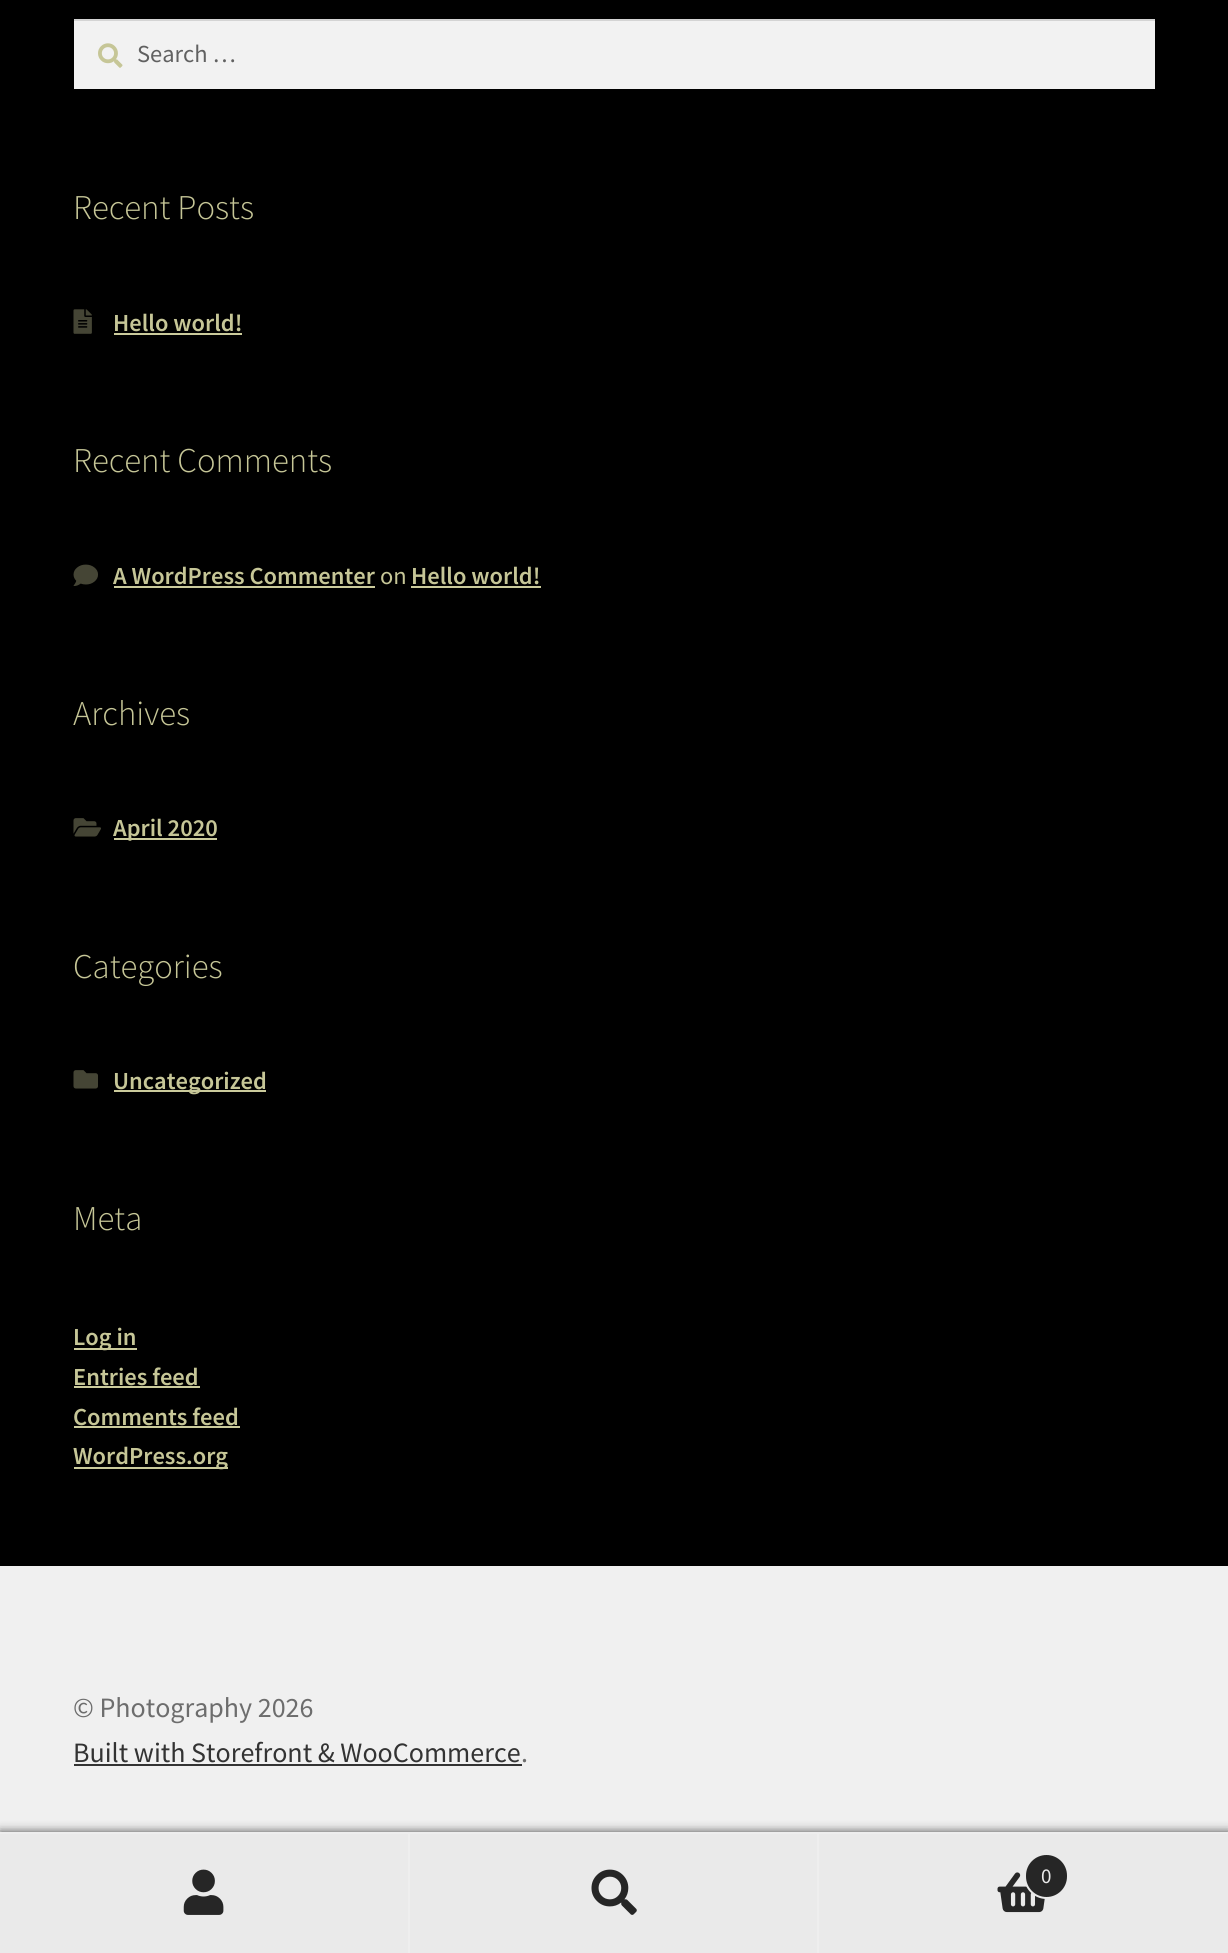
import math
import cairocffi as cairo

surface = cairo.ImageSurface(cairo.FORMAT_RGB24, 1228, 1953)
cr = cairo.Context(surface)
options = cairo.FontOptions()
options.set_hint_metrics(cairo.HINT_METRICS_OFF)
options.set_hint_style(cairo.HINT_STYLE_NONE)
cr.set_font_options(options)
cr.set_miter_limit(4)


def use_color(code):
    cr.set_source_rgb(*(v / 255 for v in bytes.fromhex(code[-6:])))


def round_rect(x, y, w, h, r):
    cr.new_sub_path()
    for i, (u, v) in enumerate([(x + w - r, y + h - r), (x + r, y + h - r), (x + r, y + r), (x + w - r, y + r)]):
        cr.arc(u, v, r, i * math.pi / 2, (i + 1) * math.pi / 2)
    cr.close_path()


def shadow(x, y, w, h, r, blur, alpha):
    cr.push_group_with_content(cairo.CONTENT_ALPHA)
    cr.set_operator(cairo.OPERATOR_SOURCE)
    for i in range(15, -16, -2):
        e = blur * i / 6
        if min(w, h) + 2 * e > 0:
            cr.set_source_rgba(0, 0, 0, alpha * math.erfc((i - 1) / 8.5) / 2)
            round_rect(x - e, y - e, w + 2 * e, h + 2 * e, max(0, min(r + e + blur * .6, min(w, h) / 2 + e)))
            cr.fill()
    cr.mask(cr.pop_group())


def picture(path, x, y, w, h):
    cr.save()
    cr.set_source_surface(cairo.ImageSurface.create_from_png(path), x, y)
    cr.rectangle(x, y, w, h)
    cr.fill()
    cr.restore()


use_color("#000000")
cr.paint()
use_color("#f2f2f2")
cr.rectangle(74, 21, 1081, 68)
cr.fill()
picture("img1.png", 98, 43, 25, 25)
use_color("#d4d4d4")
cr.rectangle(74, 19, 1081, 2)
cr.fill()
cr.select_font_face("Source Sans Pro")
cr.set_font_size(24.5)
use_color("#616161")
cr.move_to(137, 62)
cr.show_text("Search …")
cr.select_font_face("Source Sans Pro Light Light")
cr.set_font_size(34.75)
use_color("#c6c697")
cr.move_to(73, 219)
cr.show_text("Recent Posts")
picture("img2.png", 73, 309, 19, 25)
cr.select_font_face("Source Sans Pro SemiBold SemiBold")
cr.set_font_size(24.5)
cr.move_to(113, 331)
cr.show_text("Hello world!")
use_color("#cbcb9c")
cr.rectangle(114, 333, 128, 2)
cr.fill()
cr.select_font_face("Source Sans Pro Light Light")
cr.set_font_size(34.75)
use_color("#c6c697")
cr.move_to(73, 472)
cr.show_text("Recent Comments")
picture("img3.png", 73, 564, 25, 22)
cr.select_font_face("Source Sans Pro SemiBold SemiBold")
cr.set_font_size(24.5)
cr.move_to(113, 584)
cr.show_text("A WordPress Commenter")
use_color("#cbcb9c")
cr.rectangle(114, 586, 261, 2)
cr.fill()
cr.select_font_face("Source Sans Pro")
use_color("#c6c697")
cr.move_to(380, 584)
cr.show_text("on")
cr.select_font_face("Source Sans Pro SemiBold SemiBold")
cr.move_to(411, 584)
cr.show_text("Hello world!")
use_color("#cbcb9c")
cr.rectangle(411, 586, 130, 2)
cr.fill()
cr.select_font_face("Source Sans Pro Light Light")
cr.set_font_size(34.75)
use_color("#c6c697")
cr.move_to(73, 725)
cr.show_text("Archives")
picture("img4.png", 73, 818, 28, 19)
use_color("#cbcb9c")
cr.rectangle(114, 838, 103, 2)
cr.fill()
cr.select_font_face("Source Sans Pro SemiBold SemiBold")
cr.set_font_size(24.5)
use_color("#c6c697")
cr.move_to(113, 836)
cr.show_text("April 2020")
cr.select_font_face("Source Sans Pro Light Light")
cr.set_font_size(34.75)
cr.move_to(73, 978)
cr.show_text("Categories")
picture("img5.png", 73, 1070, 25, 19)
use_color("#cbcb9c")
cr.rectangle(114, 1090, 152, 2)
cr.fill()
cr.select_font_face("Source Sans Pro SemiBold SemiBold")
cr.set_font_size(24.5)
use_color("#c6c697")
cr.move_to(113, 1089)
cr.show_text("Uncategorized")
cr.select_font_face("Source Sans Pro Light Light")
cr.set_font_size(34.75)
cr.move_to(73, 1230)
cr.show_text("Meta")
use_color("#cbcb9c")
cr.rectangle(74, 1348, 63, 2)
cr.fill()
cr.select_font_face("Source Sans Pro SemiBold SemiBold")
cr.set_font_size(24.5)
use_color("#c6c697")
cr.move_to(73, 1345)
cr.show_text("Log in")
cr.move_to(73, 1385)
cr.show_text("Entries feed")
use_color("#cbcb9c")
cr.rectangle(74, 1386, 126, 2)
cr.fill()
use_color("#c6c697")
cr.move_to(73, 1425)
cr.show_text("Comments feed")
use_color("#cbcb9c")
cr.rectangle(74, 1426, 166, 2)
cr.fill()
cr.rectangle(74, 1467, 154, 2)
cr.fill()
use_color("#c6c697")
cr.move_to(73, 1464)
cr.show_text("WordPress.org")
use_color("#f0f0f0")
cr.rectangle(0, 1566, 1228, 266)
cr.fill()
cr.select_font_face("Source Sans Pro")
cr.set_font_size(28)
use_color("#6d6d6d")
cr.move_to(73, 1717)
cr.show_text("© Photography 2026")
use_color("#333333")
cr.move_to(73, 1762)
cr.show_text("Built with Storefront & WooCommerce")
cr.rectangle(74, 1764, 448, 2)
cr.fill()
use_color("#6d6d6d")
cr.move_to(521, 1762)
cr.show_text(".")
use_color("#000000")
shadow(0, 1832, 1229, 121, 0, 5, 0.7)
use_color("#eeeeee")
cr.rectangle(0, 1832, 1228, 2)
cr.fill()
use_color("#eaeaea")
cr.rectangle(0, 1834, 408, 119)
cr.fill()
use_color("#eeeeee")
cr.rectangle(408, 1834, 2, 119)
cr.fill()
picture("img6.png", 183, 1869, 41, 46)
use_color("#eaeaea")
cr.rectangle(410, 1834, 407, 119)
cr.fill()
use_color("#eeeeee")
cr.rectangle(817, 1834, 2, 119)
cr.fill()
picture("img7.png", 591, 1869, 46, 46)
use_color("#eaeaea")
cr.rectangle(819, 1834, 409, 119)
cr.fill()
picture("img8.png", 997, 1872, 48, 41)
use_color("#262626")
round_rect(1025, 1854, 43, 44, 21.5)
cr.fill_preserve()
use_color("#eaeaea")
cr.stroke()
cr.set_font_size(21)
cr.move_to(1041, 1883)
cr.show_text("0")
surface.write_to_png("result.png")
